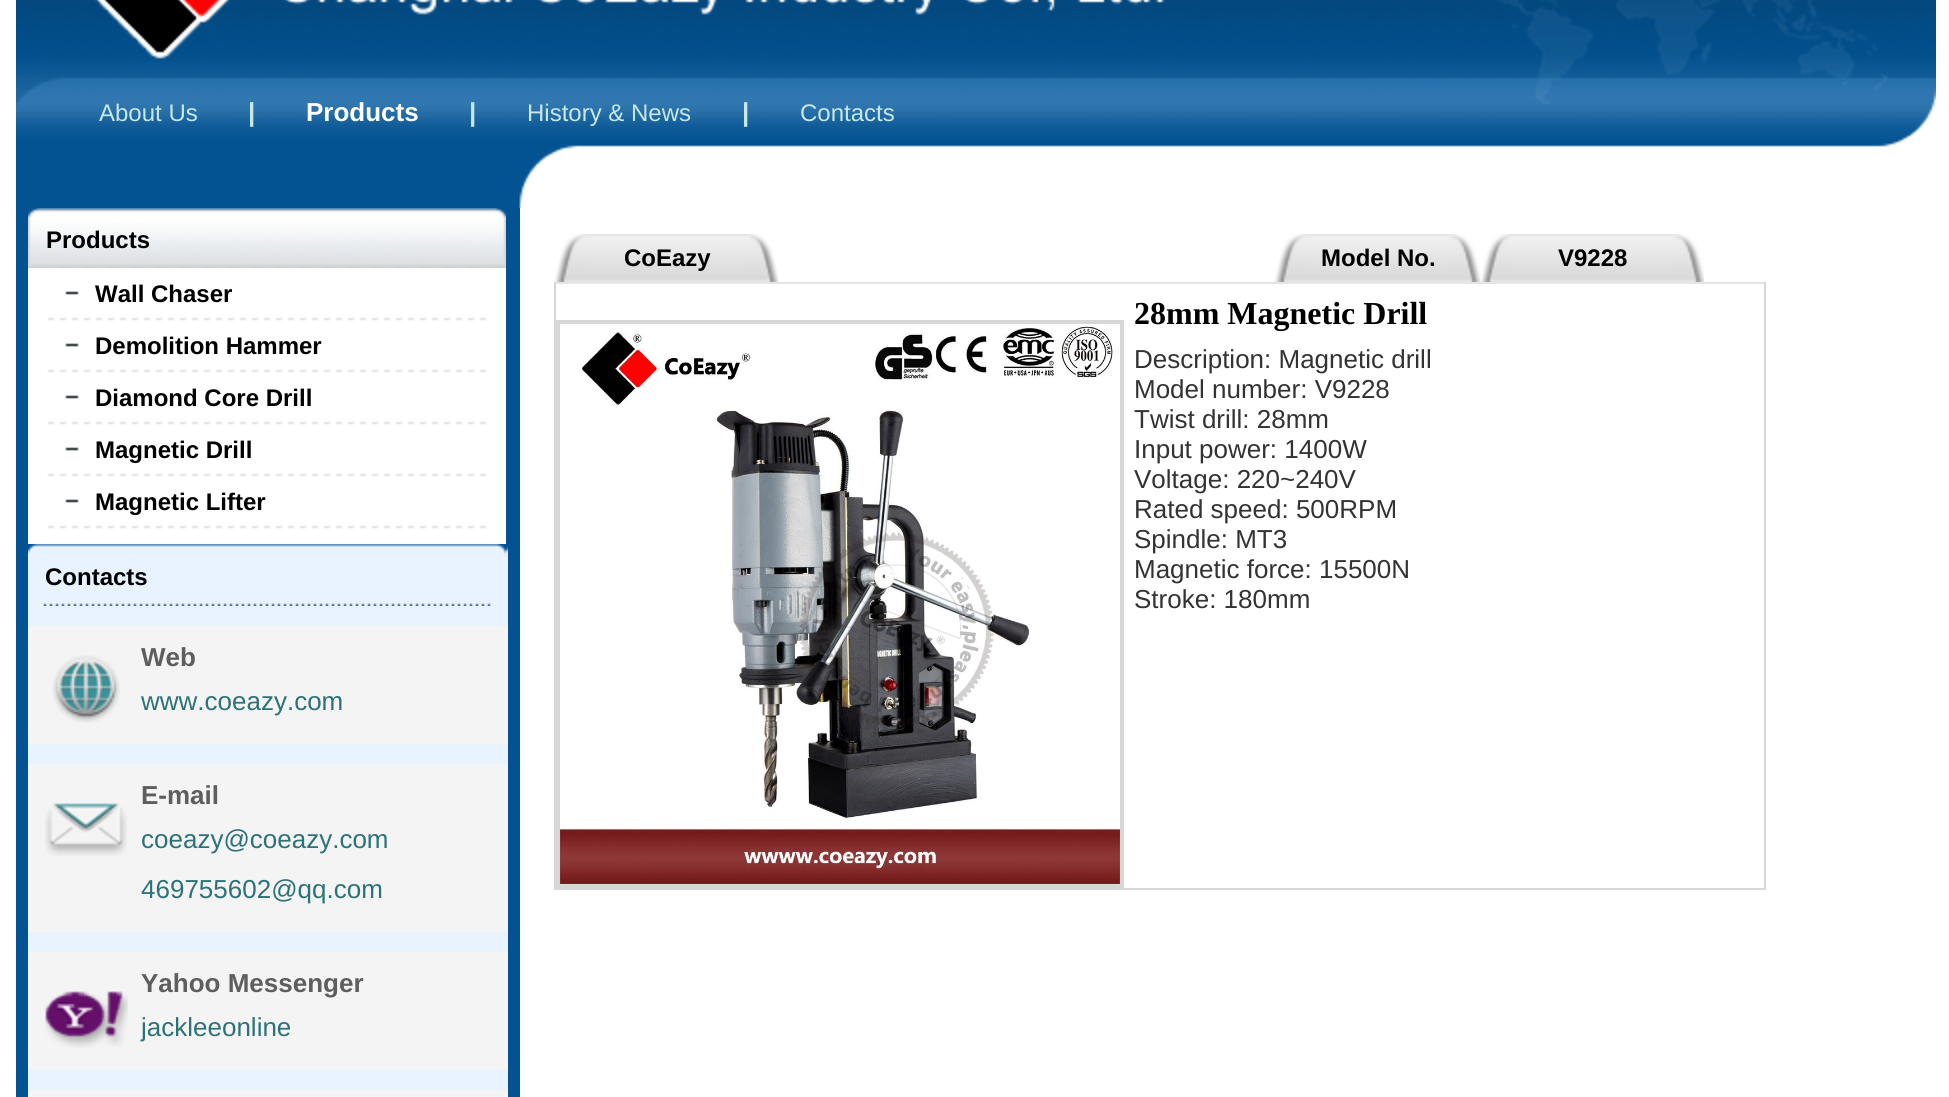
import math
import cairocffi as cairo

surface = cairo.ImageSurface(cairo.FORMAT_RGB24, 1949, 1097)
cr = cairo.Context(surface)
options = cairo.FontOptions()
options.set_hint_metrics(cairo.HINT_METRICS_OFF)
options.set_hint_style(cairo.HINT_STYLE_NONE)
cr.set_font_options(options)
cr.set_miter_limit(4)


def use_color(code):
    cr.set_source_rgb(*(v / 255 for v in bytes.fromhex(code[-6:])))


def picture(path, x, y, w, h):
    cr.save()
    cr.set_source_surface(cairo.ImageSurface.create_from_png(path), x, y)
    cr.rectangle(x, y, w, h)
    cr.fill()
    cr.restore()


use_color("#ffffff")
cr.paint()
picture("img1.png", 16, 0, 1920, 208)
cr.select_font_face("Liberation Sans")
cr.set_font_size(24)
use_color("#c6e8ea")
cr.move_to(99, 121)
cr.show_text("About Us")
cr.select_font_face("Liberation Sans", cairo.FONT_SLANT_NORMAL, cairo.FONT_WEIGHT_BOLD)
cr.set_font_size(26)
cr.move_to(248, 121)
cr.show_text("|")
use_color("#ffffff")
cr.move_to(306, 121)
cr.show_text("Products")
use_color("#c6e8ea")
cr.move_to(469, 121)
cr.show_text("|")
cr.select_font_face("Liberation Sans")
cr.set_font_size(24)
cr.move_to(527, 121)
cr.show_text("History & News")
cr.select_font_face("Liberation Sans", cairo.FONT_SLANT_NORMAL, cairo.FONT_WEIGHT_BOLD)
cr.set_font_size(26)
cr.move_to(742, 121)
cr.show_text("|")
cr.select_font_face("Liberation Sans")
cr.set_font_size(24)
cr.move_to(800, 121)
cr.show_text("Contacts")
use_color("#035393")
cr.rectangle(16, 208, 504, 889)
cr.fill()
picture("img2.png", 28, 208, 478, 60)
cr.select_font_face("Liberation Sans", cairo.FONT_SLANT_NORMAL, cairo.FONT_WEIGHT_BOLD)
use_color("#000000")
cr.move_to(46, 248)
cr.show_text("Products")
picture("img3.png", 28, 268, 478, 276)
cr.move_to(95, 302)
cr.show_text("Wall Chaser")
cr.move_to(95, 354)
cr.show_text("Demolition Hammer")
cr.move_to(95, 406)
cr.show_text("Diamond Core Drill")
cr.move_to(95, 458)
cr.show_text("Magnetic Drill")
cr.move_to(95, 510)
cr.show_text("Magnetic Lifter")
picture("img4.png", 28, 544, 480, 62)
cr.move_to(45, 585)
cr.show_text("Contacts")
use_color("#e9f2ff")
cr.rectangle(28, 606, 480, 484)
cr.fill()
use_color("#f3f4f3")
cr.rectangle(28, 626, 480, 118)
cr.fill()
picture("img5.png", 52, 655, 68, 68)
cr.set_font_size(26)
use_color("#5e5e5e")
cr.move_to(141, 666)
cr.show_text("Web")
cr.select_font_face("Liberation Sans")
use_color("#2d7279")
cr.move_to(141, 710)
cr.show_text("www.coeazy.com")
use_color("#f3f4f3")
cr.rectangle(28, 764, 480, 168)
cr.fill()
picture("img6.png", 45, 803, 82, 53)
cr.select_font_face("Liberation Sans", cairo.FONT_SLANT_NORMAL, cairo.FONT_WEIGHT_BOLD)
use_color("#5e5e5e")
cr.move_to(141, 804)
cr.show_text("E-mail")
cr.select_font_face("Liberation Sans")
use_color("#2d7279")
cr.move_to(141, 848)
cr.show_text("coeazy@coeazy.com")
cr.move_to(141, 898)
cr.show_text("469755602@qq.com")
use_color("#f3f4f3")
cr.rectangle(28, 952, 480, 118)
cr.fill()
picture("img7.png", 45, 991, 83, 57)
cr.select_font_face("Liberation Sans", cairo.FONT_SLANT_NORMAL, cairo.FONT_WEIGHT_BOLD)
use_color("#5e5e5e")
cr.move_to(141, 992)
cr.show_text("Yahoo Messenger")
cr.select_font_face("Liberation Sans")
use_color("#2d7279")
cr.move_to(141, 1036)
cr.show_text("jackleeonline")
use_color("#f3f4f3")
cr.rectangle(28, 1090, 480, 7)
cr.fill()
picture("img8.png", 585, 234, 164, 48)
picture("img9.png", 554, 234, 31, 48)
cr.select_font_face("Liberation Sans", cairo.FONT_SLANT_NORMAL, cairo.FONT_WEIGHT_BOLD)
cr.set_font_size(24)
use_color("#000000")
cr.move_to(624, 266)
cr.show_text("CoEazy")
picture("img10.png", 749, 234, 29, 48)
picture("img11.png", 1305, 234, 146, 48)
picture("img9.png", 1274, 234, 31, 48)
cr.move_to(1321, 266)
cr.show_text("Model No.")
picture("img10.png", 1451, 234, 29, 48)
picture("img8.png", 1511, 234, 164, 48)
picture("img9.png", 1480, 234, 31, 48)
cr.move_to(1558, 266)
cr.show_text("V9228")
picture("img10.png", 1675, 234, 29, 48)
use_color("#e5e5e5")
cr.rectangle(554, 282, 1212, 2)
cr.fill()
use_color("#d7d7d7")
cr.rectangle(1764, 282, 2, 608)
cr.fill()
cr.rectangle(554, 888, 1212, 2)
cr.fill()
cr.rectangle(554, 282, 2, 608)
cr.fill()
cr.rectangle(557, 321, 566, 566)
cr.stroke()
cr.rectangle(559, 323, 562, 562)
cr.stroke()
picture("img12.png", 560, 324, 560, 560)
cr.select_font_face("Liberation Serif", cairo.FONT_SLANT_NORMAL, cairo.FONT_WEIGHT_BOLD)
cr.set_font_size(32)
use_color("#000000")
cr.move_to(1134, 324)
cr.show_text("28mm Magnetic Drill")
cr.select_font_face("Liberation Sans")
cr.set_font_size(26)
use_color("#333333")
cr.move_to(1134, 368)
cr.show_text("Description: Magnetic drill")
cr.move_to(1134, 398)
cr.show_text("Model number: V9228")
cr.move_to(1134, 428)
cr.show_text("Twist drill: 28mm")
cr.move_to(1134, 458)
cr.show_text("Input power: 1400W")
cr.move_to(1134, 488)
cr.show_text("Voltage: 220~240V")
cr.move_to(1134, 518)
cr.show_text("Rated speed: 500RPM")
cr.move_to(1134, 548)
cr.show_text("Spindle: MT3")
cr.move_to(1134, 578)
cr.show_text("Magnetic force: 15500N")
cr.move_to(1134, 608)
cr.show_text("Stroke: 180mm")
surface.write_to_png("result.png")
